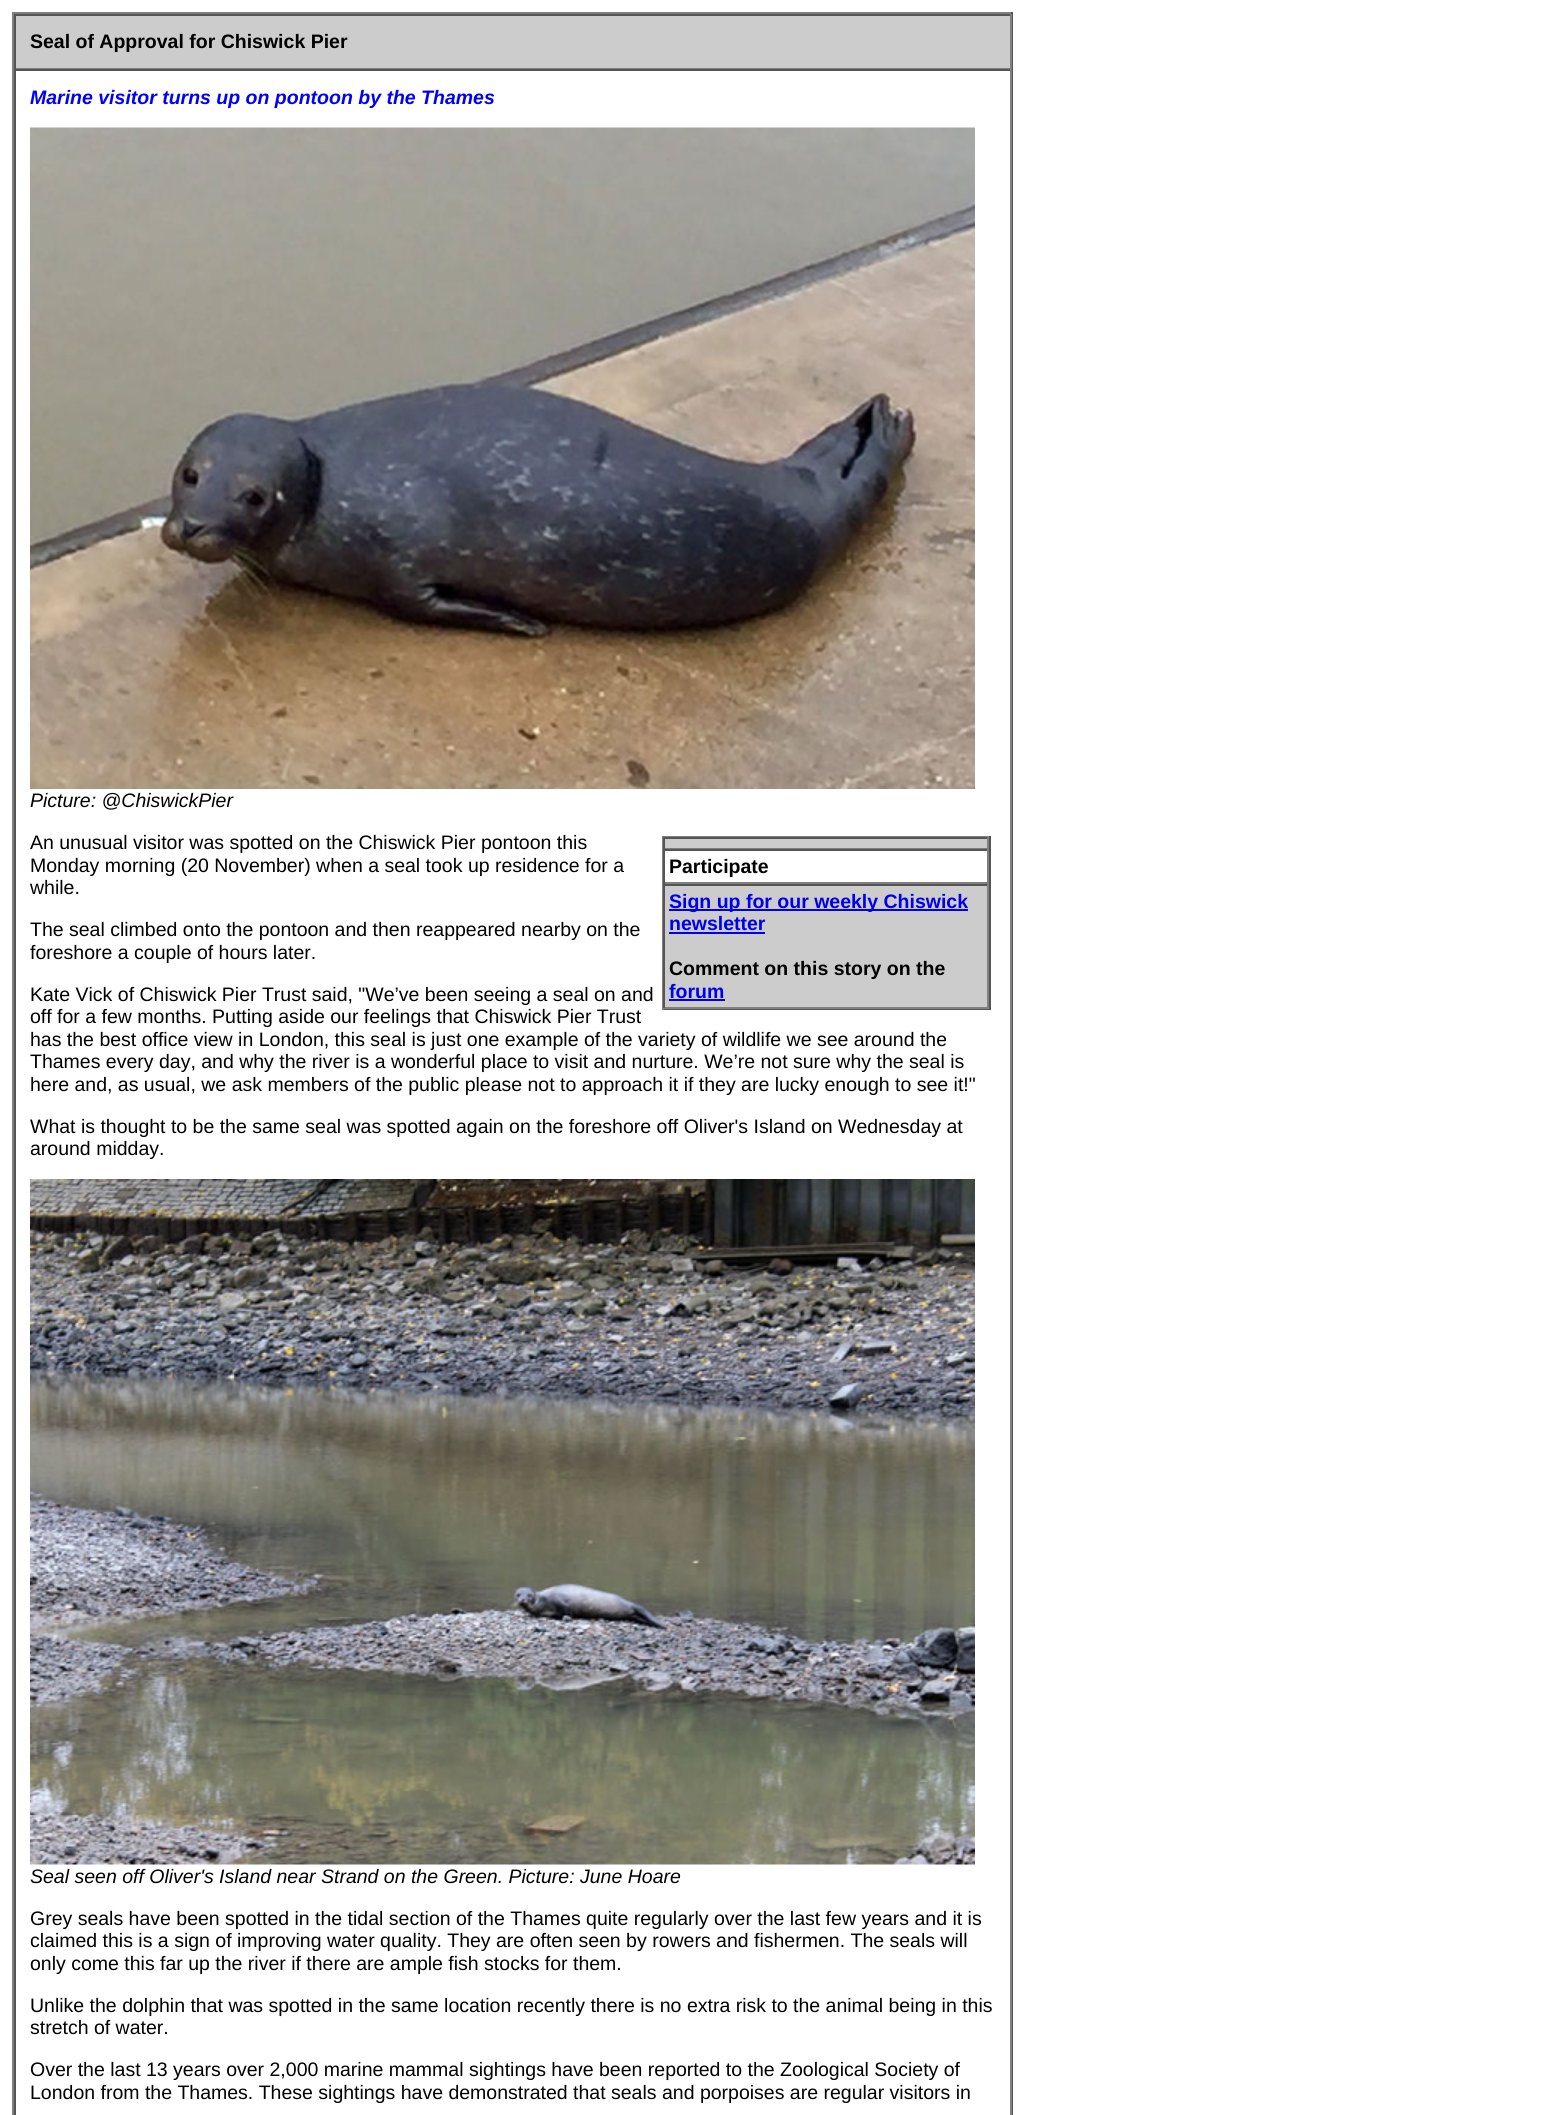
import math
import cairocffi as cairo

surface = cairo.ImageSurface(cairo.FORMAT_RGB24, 1552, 2115)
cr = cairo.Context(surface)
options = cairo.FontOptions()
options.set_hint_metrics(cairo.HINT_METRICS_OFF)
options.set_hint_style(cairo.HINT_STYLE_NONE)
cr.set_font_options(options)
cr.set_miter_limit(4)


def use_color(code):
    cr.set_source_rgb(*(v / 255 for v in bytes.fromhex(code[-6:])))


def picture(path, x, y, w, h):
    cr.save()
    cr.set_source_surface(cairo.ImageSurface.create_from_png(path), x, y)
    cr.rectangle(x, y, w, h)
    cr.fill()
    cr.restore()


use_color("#ffffff")
cr.paint()
use_color("#808080")
cr.rectangle(12, 12, 1001, 2)
cr.fill()
use_color("#555555")
cr.rectangle(1011, 12, 2, 2103)
cr.fill()
use_color("#808080")
cr.rectangle(12, 12, 2, 2103)
cr.fill()
use_color("#cccccc")
cr.rectangle(16, 16, 994, 52)
cr.fill()
use_color("#555555")
cr.rectangle(14, 14, 997, 2)
cr.fill()
use_color("#808080")
cr.rectangle(1010, 14, 2, 55)
cr.fill()
cr.rectangle(14, 68, 997, 1)
cr.fill()
use_color("#555555")
cr.rectangle(14, 14, 2, 55)
cr.fill()
cr.select_font_face("Liberation Sans", cairo.FONT_SLANT_NORMAL, cairo.FONT_WEIGHT_BOLD)
cr.set_font_size(19.5)
use_color("#000000")
cr.move_to(30, 48)
cr.show_text("Seal of Approval for Chiswick Pier")
use_color("#555555")
cr.rectangle(14, 69, 997, 2)
cr.fill()
use_color("#808080")
cr.rectangle(1010, 69, 2, 2046)
cr.fill()
use_color("#555555")
cr.rectangle(14, 69, 2, 2046)
cr.fill()
cr.select_font_face("Liberation Sans", cairo.FONT_SLANT_ITALIC, cairo.FONT_WEIGHT_BOLD)
use_color("#0000ff")
cr.move_to(30, 104)
cr.show_text("Marine visitor turns up on pontoon by the Thames")
picture("img1.png", 30, 127, 945, 662)
cr.select_font_face("Liberation Sans", cairo.FONT_SLANT_ITALIC)
use_color("#000000")
cr.move_to(30, 807)
cr.show_text("Picture: @ChiswickPier")
cr.select_font_face("Liberation Sans")
cr.move_to(30, 849)
cr.show_text("An unusual visitor was spotted on the Chiswick Pier pontoon this")
cr.move_to(30, 872)
cr.show_text("Monday morning (20 November) when a seal took up residence for a")
cr.move_to(30, 894)
cr.show_text("while.")
use_color("#808080")
cr.rectangle(662, 836, 328, 1)
cr.fill()
use_color("#555555")
cr.rectangle(989, 836, 2, 174)
cr.fill()
cr.rectangle(662, 1008, 328, 2)
cr.fill()
use_color("#808080")
cr.rectangle(662, 836, 2, 174)
cr.fill()
use_color("#cccccc")
cr.rectangle(665, 839, 322, 9)
cr.fill()
use_color("#555555")
cr.rectangle(663, 837, 326, 2)
cr.fill()
use_color("#808080")
cr.rectangle(987, 837, 2, 12)
cr.fill()
cr.rectangle(663, 848, 326, 1)
cr.fill()
use_color("#555555")
cr.rectangle(663, 837, 2, 12)
cr.fill()
cr.rectangle(663, 849, 326, 2)
cr.fill()
use_color("#808080")
cr.rectangle(987, 849, 2, 35)
cr.fill()
cr.rectangle(663, 882, 326, 2)
cr.fill()
use_color("#555555")
cr.rectangle(663, 849, 2, 35)
cr.fill()
cr.select_font_face("Liberation Sans", cairo.FONT_SLANT_NORMAL, cairo.FONT_WEIGHT_BOLD)
use_color("#000000")
cr.move_to(669, 873)
cr.show_text("Participate")
use_color("#cccccc")
cr.rectangle(665, 886, 322, 121)
cr.fill()
use_color("#555555")
cr.rectangle(663, 884, 326, 2)
cr.fill()
use_color("#808080")
cr.rectangle(987, 884, 2, 124)
cr.fill()
cr.rectangle(663, 1007, 326, 2)
cr.fill()
use_color("#555555")
cr.rectangle(663, 884, 2, 124)
cr.fill()
use_color("#0000ee")
cr.rectangle(669, 909, 299, 2)
cr.fill()
cr.move_to(669, 908)
cr.show_text("Sign up for our weekly Chiswick")
cr.move_to(669, 930)
cr.show_text("newsletter")
cr.rectangle(669, 932, 96, 2)
cr.fill()
use_color("#000000")
cr.move_to(669, 975)
cr.show_text("Comment on this story on the")
use_color("#0000ee")
cr.move_to(669, 998)
cr.show_text("forum")
cr.rectangle(669, 999, 56, 2)
cr.fill()
cr.select_font_face("Liberation Sans")
use_color("#000000")
cr.move_to(30, 936)
cr.show_text("The seal climbed onto the pontoon and then reappeared nearby on the")
cr.move_to(30, 959)
cr.show_text("foreshore a couple of hours later.")
cr.move_to(30, 1001)
cr.show_text("Kate Vick of Chiswick Pier Trust said, \"We’ve been seeing a seal on and")
cr.move_to(30, 1023)
cr.show_text("off for a few months. Putting aside our feelings that Chiswick Pier Trust")
cr.move_to(30, 1046)
cr.show_text("has the best office view in London, this seal is just one example of the variety of wildlife we see around the")
cr.move_to(30, 1068)
cr.show_text("Thames every day, and why the river is a wonderful place to visit and nurture. We’re not sure why the seal is")
cr.move_to(30, 1091)
cr.show_text("here and, as usual, we ask members of the public please not to approach it if they are lucky enough to see it!\"")
cr.move_to(30, 1133)
cr.show_text("What is thought to be the same seal was spotted again on the foreshore off Oliver's Island on Wednesday at")
cr.move_to(30, 1155)
cr.show_text("around midday.")
picture("img2.png", 30, 1179, 945, 686)
cr.select_font_face("Liberation Sans", cairo.FONT_SLANT_ITALIC)
cr.move_to(30, 1883)
cr.show_text("Seal seen off Oliver's Island near Strand on the Green. Picture: June Hoare")
cr.select_font_face("Liberation Sans")
cr.move_to(30, 1925)
cr.show_text("Grey seals have been spotted in the tidal section of the Thames quite regularly over the last few years and it is")
cr.move_to(30, 1947)
cr.show_text("claimed this is a sign of improving water quality. They are often seen by rowers and fishermen. The seals will")
cr.move_to(30, 1970)
cr.show_text("only come this far up the river if there are ample fish stocks for them.")
cr.move_to(30, 2012)
cr.show_text("Unlike the dolphin that was spotted in the same location recently there is no extra risk to the animal being in this")
cr.move_to(30, 2034)
cr.show_text("stretch of water.")
cr.move_to(30, 2076)
cr.show_text("Over the last 13 years over 2,000 marine mammal sightings have been reported to the Zoological Society of")
cr.move_to(30, 2099)
cr.show_text("London from the Thames. These sightings have demonstrated that seals and porpoises are regular visitors in")
surface.write_to_png("result.png")
